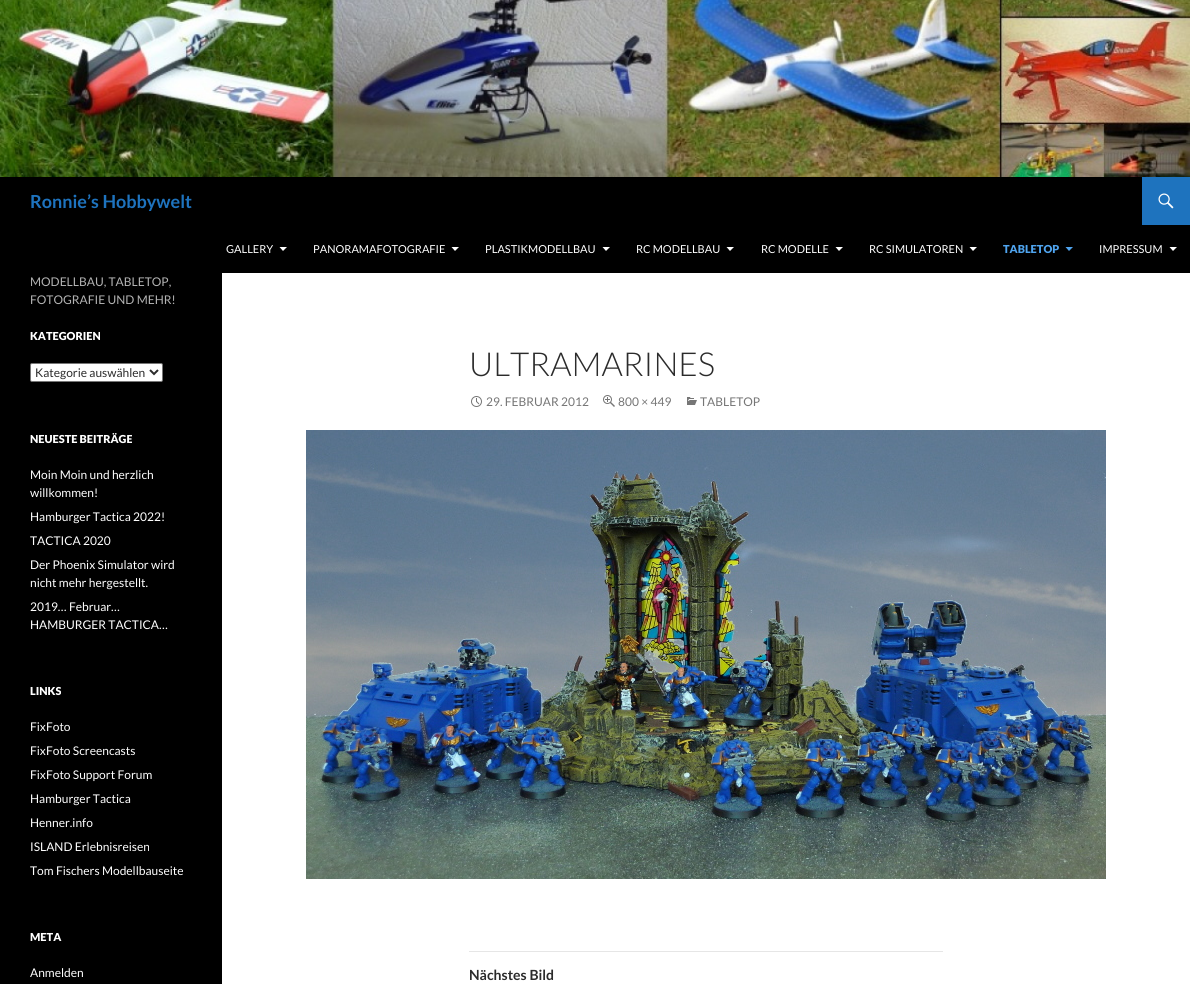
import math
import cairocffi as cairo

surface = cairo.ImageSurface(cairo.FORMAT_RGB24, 1190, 984)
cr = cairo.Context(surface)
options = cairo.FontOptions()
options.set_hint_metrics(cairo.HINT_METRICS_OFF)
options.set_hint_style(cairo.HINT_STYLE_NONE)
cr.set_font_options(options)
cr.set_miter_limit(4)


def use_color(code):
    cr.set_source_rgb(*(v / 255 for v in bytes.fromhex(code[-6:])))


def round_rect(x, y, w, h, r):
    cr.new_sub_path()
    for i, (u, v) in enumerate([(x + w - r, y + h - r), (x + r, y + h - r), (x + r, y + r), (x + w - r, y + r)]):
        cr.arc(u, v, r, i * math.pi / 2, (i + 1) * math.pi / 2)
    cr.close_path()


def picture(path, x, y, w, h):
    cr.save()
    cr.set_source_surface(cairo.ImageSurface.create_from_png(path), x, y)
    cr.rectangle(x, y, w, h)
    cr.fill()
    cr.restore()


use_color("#ffffff")
cr.paint()
picture("img1.png", 0, 0, 1190, 177)
use_color("#000000")
cr.rectangle(0, 177, 1190, 96)
cr.fill()
cr.select_font_face("Lato", cairo.FONT_SLANT_NORMAL, cairo.FONT_WEIGHT_BOLD)
cr.set_font_size(18)
use_color("#1e73be")
cr.move_to(30, 208)
cr.show_text("Ronnie’s Hobbywelt")
cr.rectangle(1142, 177, 48, 48)
cr.fill()
picture("img2.png", 1158, 193, 16, 16)
cr.select_font_face("Lato")
cr.set_font_size(11)
use_color("#ffffff")
cr.move_to(226, 253)
cr.show_text("GALLERY")
cr.new_path()
cr.move_to(279.5, 247)
cr.line_to(283, 251)
cr.line_to(287, 247)
cr.close_path()
cr.fill()
cr.move_to(313, 253)
cr.show_text("PANORAMAFOTOGRAFIE")
cr.new_path()
cr.move_to(451.5, 247)
cr.line_to(455, 251)
cr.line_to(459, 247)
cr.close_path()
cr.fill()
cr.move_to(485, 253)
cr.show_text("PLASTIKMODELLBAU")
cr.new_path()
cr.move_to(602.5, 247)
cr.line_to(606, 251)
cr.line_to(610, 247)
cr.close_path()
cr.fill()
cr.move_to(636, 253)
cr.show_text("RC MODELLBAU")
cr.new_path()
cr.move_to(726.5, 247)
cr.line_to(730, 251)
cr.line_to(734, 247)
cr.close_path()
cr.fill()
cr.move_to(761, 253)
cr.show_text("RC MODELLE")
cr.new_path()
cr.move_to(835.5, 247)
cr.line_to(839, 251)
cr.line_to(843, 247)
cr.close_path()
cr.fill()
cr.move_to(869, 253)
cr.show_text("RC SIMULATOREN")
cr.new_path()
cr.move_to(969.5, 247)
cr.line_to(973, 251)
cr.line_to(977, 247)
cr.close_path()
cr.fill()
cr.select_font_face("Lato Black")
use_color("#4fa4ef")
cr.move_to(1003, 253)
cr.show_text("TABLETOP")
cr.new_path()
cr.move_to(1065.5, 247)
cr.line_to(1069, 251)
cr.line_to(1073, 247)
cr.close_path()
cr.fill()
cr.select_font_face("Lato")
use_color("#ffffff")
cr.move_to(1099, 253)
cr.show_text("IMPRESSUM")
cr.new_path()
cr.move_to(1169.5, 247)
cr.line_to(1173, 251)
cr.line_to(1177, 247)
cr.close_path()
cr.fill()
use_color("#000000")
cr.rectangle(0, 273, 222, 711)
cr.fill()
cr.set_font_size(12)
use_color("#b3b3b3")
cr.move_to(30, 286)
cr.show_text("MODELLBAU, TABLETOP,")
cr.move_to(30, 304)
cr.show_text("FOTOGRAFIE UND MEHR!")
cr.select_font_face("Lato Black")
cr.set_font_size(11)
use_color("#ffffff")
cr.move_to(30, 340)
cr.show_text("KATEGORIEN")
round_rect(30.5, 363.5, 132, 18, 1.5)
cr.fill_preserve()
use_color("#767676")
cr.set_line_width(1)
cr.stroke()
cr.new_path()
cr.move_to(150, 370)
cr.line_to(154, 374)
cr.line_to(158, 370)
use_color("#2b2b2b")
cr.set_line_width(2)
cr.stroke()
cr.select_font_face("Lato")
cr.set_font_size(12)
cr.move_to(35, 377)
cr.show_text("Kategorie auswählen")
cr.select_font_face("Lato Black")
cr.set_font_size(11)
use_color("#ffffff")
cr.move_to(30, 443)
cr.show_text("NEUESTE BEITRÄGE")
cr.select_font_face("Lato")
cr.set_font_size(12)
cr.move_to(30, 479)
cr.show_text("Moin Moin und herzlich")
cr.move_to(30, 497)
cr.show_text("willkommen!")
cr.move_to(30, 521)
cr.show_text("Hamburger Tactica 2022!")
cr.move_to(30, 545)
cr.show_text("TACTICA 2020")
cr.move_to(30, 569)
cr.show_text("Der Phoenix Simulator wird")
cr.move_to(30, 587)
cr.show_text("nicht mehr hergestellt.")
cr.move_to(30, 611)
cr.show_text("2019… Februar…")
cr.move_to(30, 629)
cr.show_text("HAMBURGER TACTICA…")
cr.select_font_face("Lato Black")
cr.set_font_size(11)
cr.move_to(30, 695)
cr.show_text("LINKS")
cr.select_font_face("Lato")
cr.set_font_size(12)
cr.move_to(30, 731)
cr.show_text("FixFoto")
cr.move_to(30, 755)
cr.show_text("FixFoto Screencasts")
cr.move_to(30, 779)
cr.show_text("FixFoto Support Forum")
cr.move_to(30, 803)
cr.show_text("Hamburger Tactica")
cr.move_to(30, 827)
cr.show_text("Henner.info")
cr.move_to(30, 851)
cr.show_text("ISLAND Erlebnisreisen")
cr.move_to(30, 875)
cr.show_text("Tom Fischers Modellbauseite")
cr.select_font_face("Lato Black")
cr.set_font_size(11)
cr.move_to(30, 941)
cr.show_text("META")
cr.select_font_face("Lato")
cr.set_font_size(12)
cr.move_to(30, 977)
cr.show_text("Anmelden")
cr.select_font_face("Lato Light")
cr.set_font_size(33)
use_color("#2b2b2b")
cr.move_to(469, 376)
cr.show_text("ULTRAMARINES")
picture("img3.png", 471, 396, 11, 11)
cr.select_font_face("Lato")
cr.set_font_size(12)
use_color("#767676")
cr.move_to(486, 406)
cr.show_text("29. FEBRUAR 2012")
picture("img4.png", 603, 395, 12, 12)
cr.move_to(618, 406)
cr.show_text("800 × 449")
picture("img5.png", 687, 397, 10, 8)
cr.move_to(700, 406)
cr.show_text("TABLETOP")
picture("img6.png", 306, 430, 800, 449)
use_color("#e6e6e6")
cr.rectangle(469, 951, 474, 1)
cr.fill()
cr.select_font_face("Lato", cairo.FONT_SLANT_NORMAL, cairo.FONT_WEIGHT_BOLD)
cr.set_font_size(14)
use_color("#2b2b2b")
cr.move_to(469, 980)
cr.show_text("Nächstes Bild")
surface.write_to_png("result.png")
